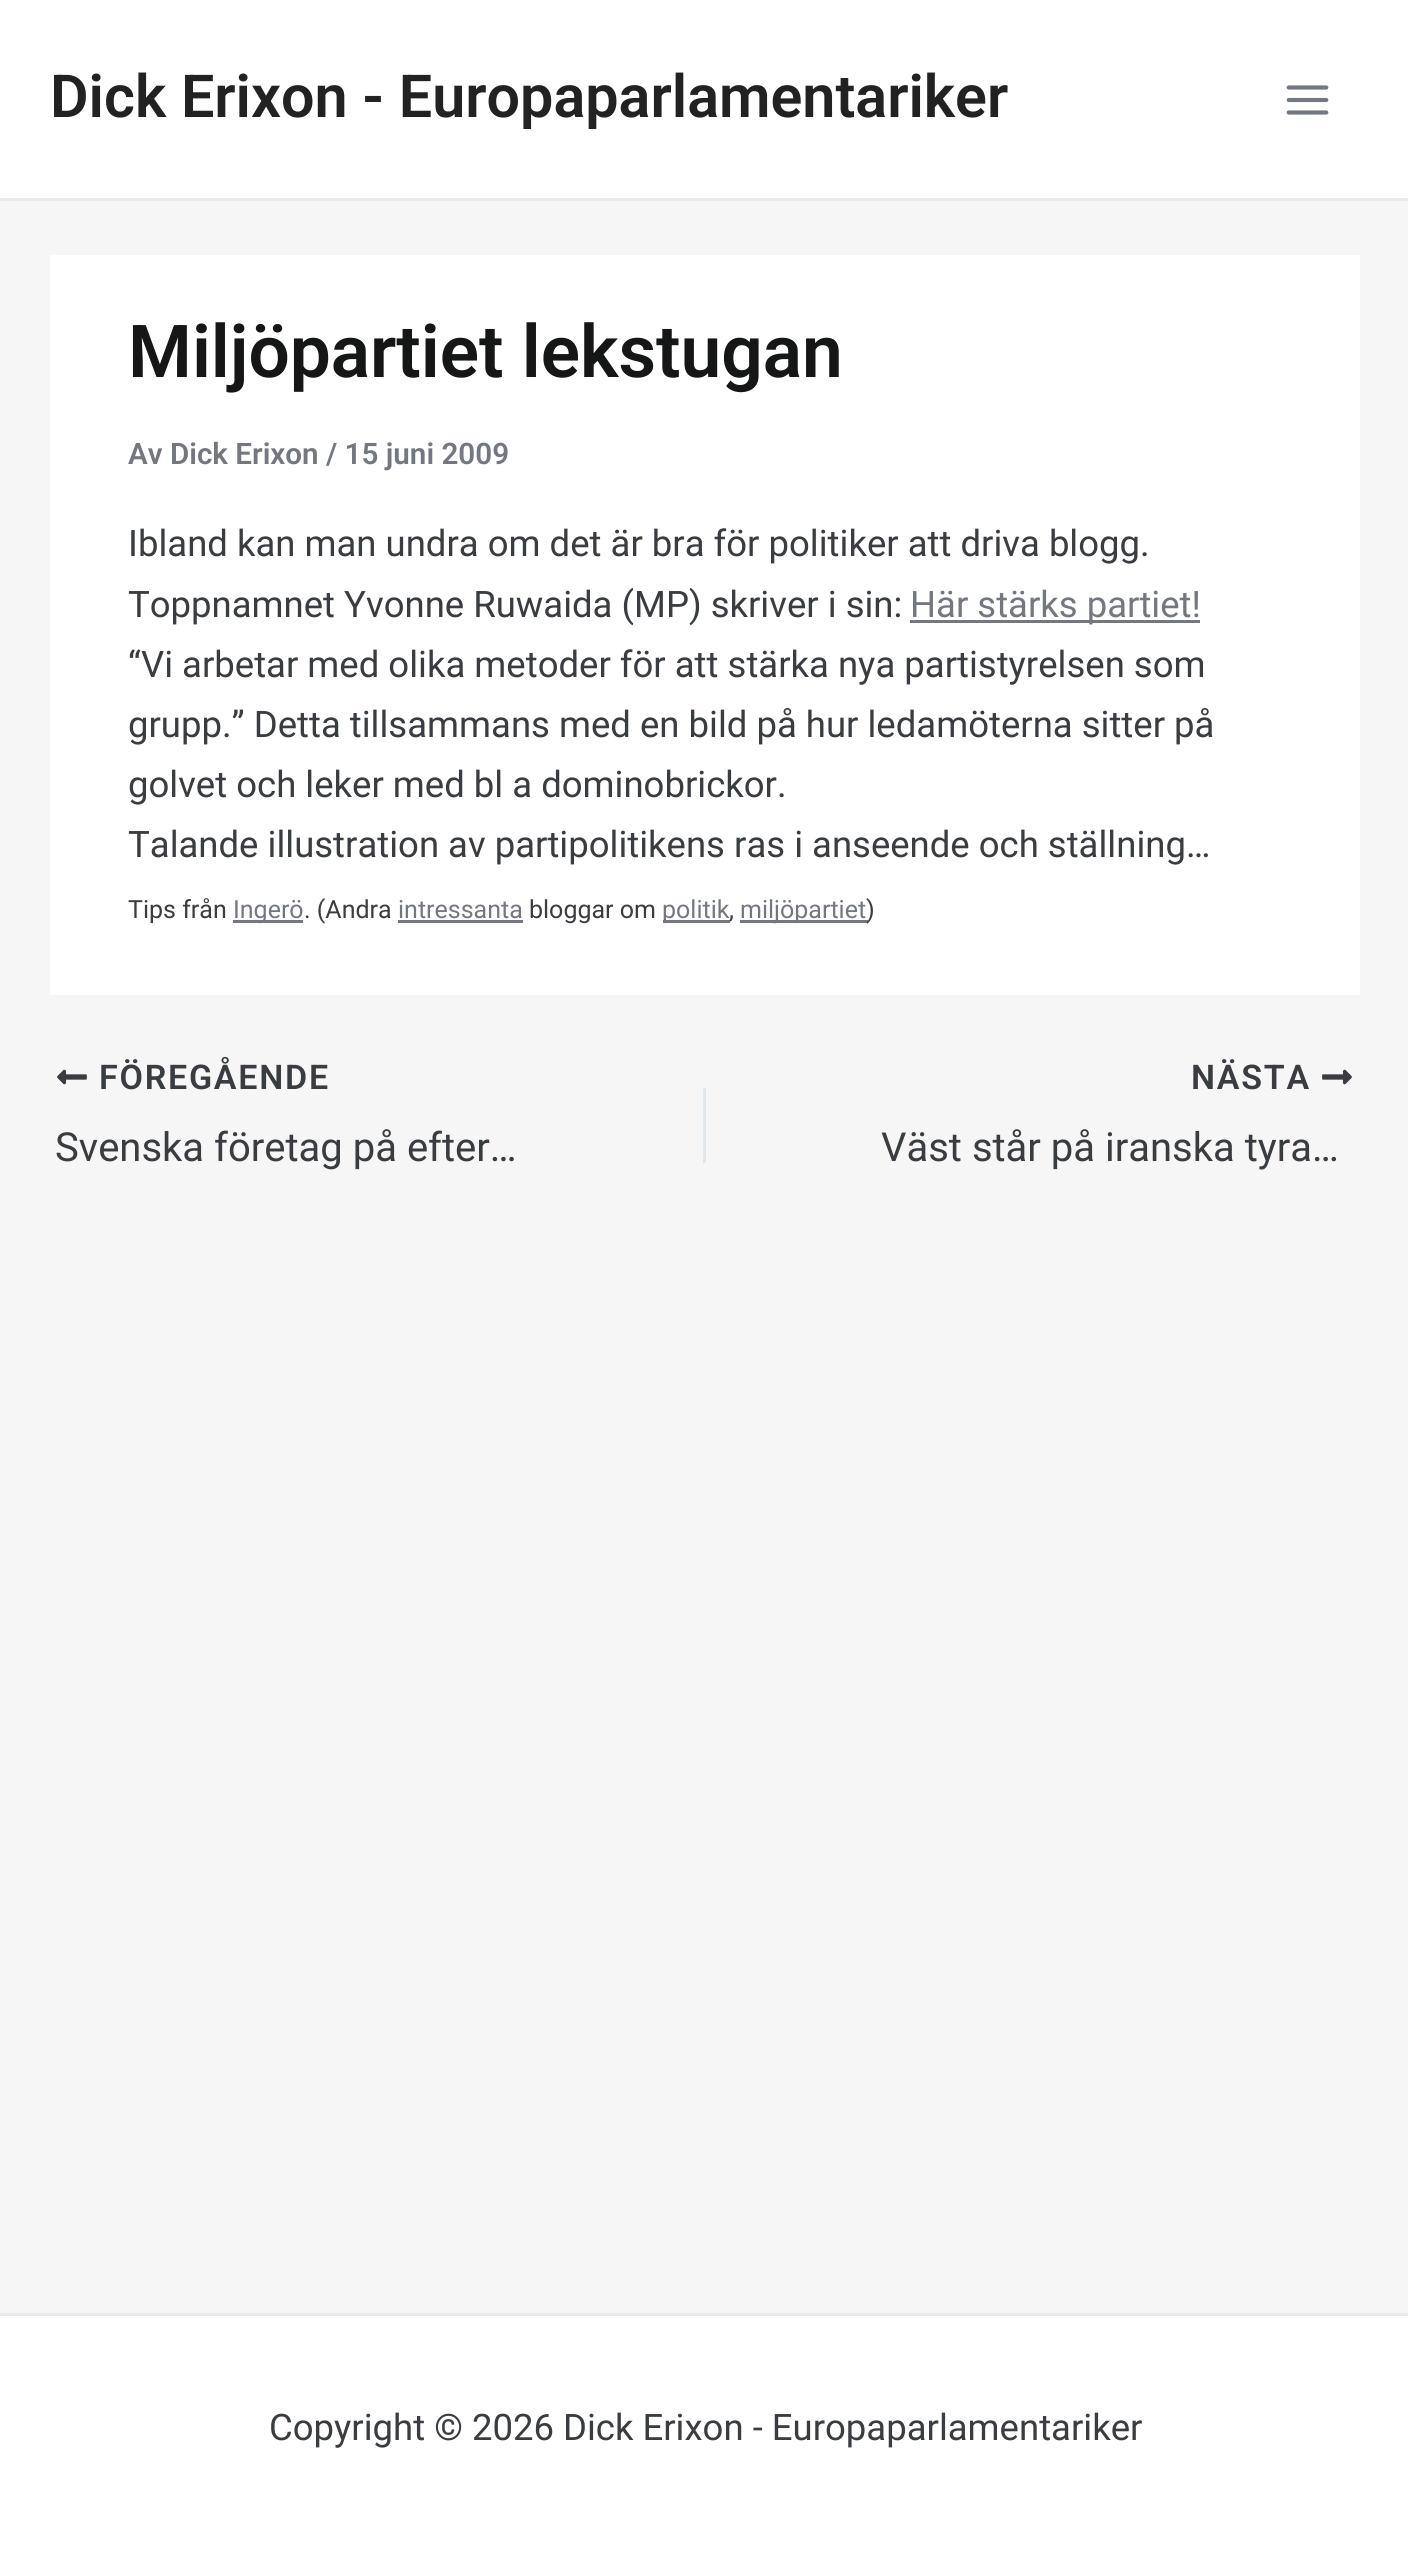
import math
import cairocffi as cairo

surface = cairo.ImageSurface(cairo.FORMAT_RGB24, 1408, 2565)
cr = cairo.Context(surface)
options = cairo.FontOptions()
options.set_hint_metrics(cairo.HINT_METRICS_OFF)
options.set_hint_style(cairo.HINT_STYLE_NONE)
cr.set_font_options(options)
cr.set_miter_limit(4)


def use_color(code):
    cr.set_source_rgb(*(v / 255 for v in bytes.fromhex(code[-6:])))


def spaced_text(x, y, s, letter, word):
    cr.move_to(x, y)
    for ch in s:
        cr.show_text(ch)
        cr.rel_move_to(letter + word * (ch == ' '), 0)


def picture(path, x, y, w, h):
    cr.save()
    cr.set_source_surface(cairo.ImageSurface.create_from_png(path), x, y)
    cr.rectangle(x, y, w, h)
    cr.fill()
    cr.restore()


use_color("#f6f6f6")
cr.paint()
use_color("#ffffff")
cr.rectangle(0, 0, 1408, 198)
cr.fill()
use_color("#eaeaea")
cr.rectangle(0, 198, 1408, 3)
cr.fill()
cr.select_font_face("Roboto SemiBold")
cr.set_font_size(59.25)
use_color("#222222")
cr.move_to(50, 117)
cr.show_text("Dick Erixon - Europaparlamentariker")
picture("img1.png", 1286, 85, 43, 30)
use_color("#ffffff")
cr.rectangle(50, 255, 1310, 740)
cr.fill()
cr.set_font_size(73)
use_color("#151616")
cr.move_to(128, 377)
cr.show_text("Miljöpartiet lekstugan")
cr.set_font_size(29.6)
use_color("#737880")
cr.move_to(128, 464)
cr.show_text("Av Dick Erixon / 15 juni 2009")
cr.select_font_face("Roboto")
cr.set_font_size(36.5)
use_color("#393c40")
cr.move_to(128, 556)
cr.show_text("Ibland kan man undra om det är bra för politiker att driva blogg.")
cr.move_to(128, 617)
cr.show_text("Toppnamnet Yvonne Ruwaida (MP) skriver i sin:")
use_color("#737880")
cr.rectangle(910, 620, 290, 3)
cr.fill()
cr.move_to(910, 617)
cr.show_text("Här stärks partiet!")
use_color("#393c40")
cr.move_to(128, 677)
cr.show_text("“Vi arbetar med olika metoder för att stärka nya partistyrelsen som")
cr.move_to(128, 737)
cr.show_text("grupp.” Detta tillsammans med en bild på hur ledamöterna sitter på")
cr.move_to(128, 797)
cr.show_text("golvet och leker med bl a dominobrickor.")
cr.move_to(128, 857)
cr.show_text("Talande illustration av partipolitikens ras i anseende och ställning…")
cr.set_font_size(25)
cr.move_to(128, 918)
cr.show_text("Tips från")
use_color("#737880")
cr.rectangle(233, 920, 70, 3)
cr.fill()
cr.move_to(233, 918)
cr.show_text("Ingerö")
use_color("#393c40")
cr.move_to(304, 918)
cr.show_text(". (Andra")
use_color("#737880")
cr.move_to(398, 918)
cr.show_text("intressanta")
cr.rectangle(398, 920, 125, 3)
cr.fill()
use_color("#393c40")
cr.move_to(529, 918)
cr.show_text("bloggar om")
use_color("#737880")
cr.rectangle(663, 920, 67, 3)
cr.fill()
cr.move_to(662, 918)
cr.show_text("politik")
use_color("#393c40")
cr.move_to(729, 918)
cr.show_text(",")
use_color("#737880")
cr.rectangle(740, 920, 128, 3)
cr.fill()
cr.move_to(740, 918)
cr.show_text("miljöpartiet")
use_color("#393c40")
cr.move_to(866, 918)
cr.show_text(")")
picture("img2.png", 57, 1069, 30, 16)
cr.select_font_face("Roboto SemiBold")
cr.set_font_size(34)
spaced_text(99, 1089, "FÖREGÅENDE", 1.75, 0)
cr.select_font_face("Roboto")
cr.set_font_size(40)
cr.move_to(55, 1161)
cr.show_text("Svenska företag på efter…")
use_color("#e1e8ed")
cr.rectangle(703, 1088, 3, 75)
cr.fill()
cr.select_font_face("Roboto SemiBold")
cr.set_font_size(34)
use_color("#393c40")
spaced_text(1191, 1089, "NÄSTA", 1.75, 0)
picture("img3.png", 1322, 1069, 30, 16)
cr.select_font_face("Roboto")
cr.set_font_size(40)
cr.move_to(881, 1161)
cr.show_text("Väst står på iranska tyra…")
use_color("#ffffff")
cr.rectangle(0, 2316, 1408, 249)
cr.fill()
use_color("#eaeaea")
cr.rectangle(0, 2313, 1408, 3)
cr.fill()
cr.set_font_size(36.5)
use_color("#393c40")
cr.move_to(269, 2440)
cr.show_text("Copyright © 2026 Dick Erixon - Europaparlamentariker")
surface.write_to_png("result.png")
